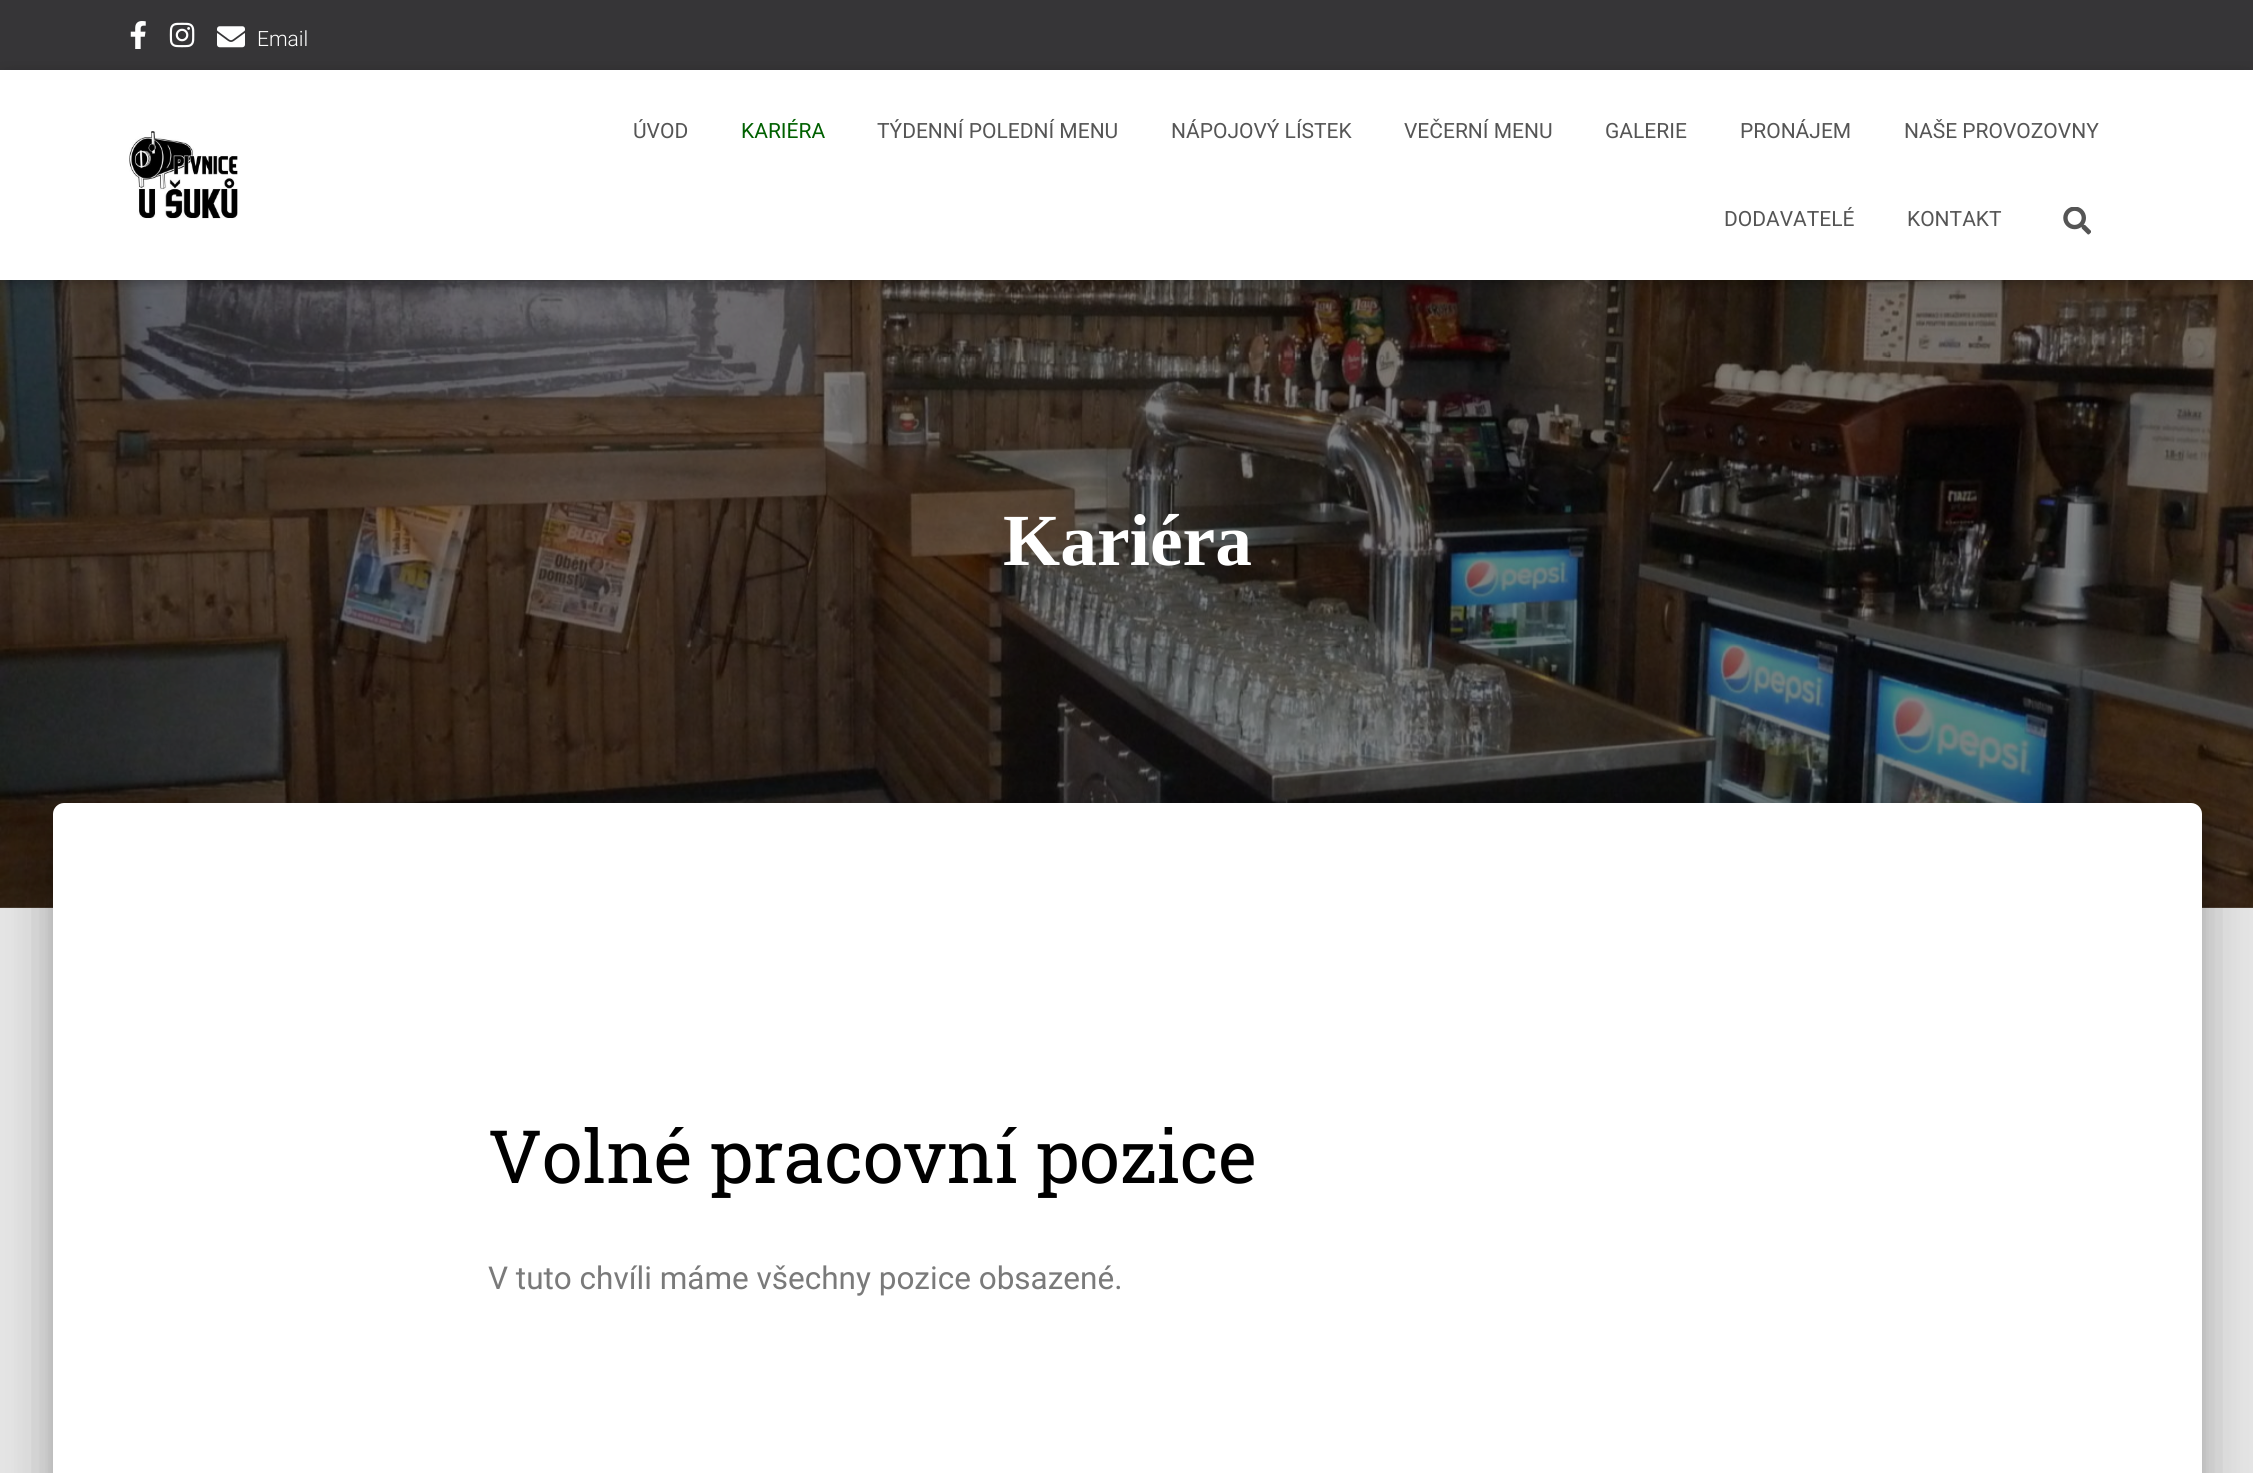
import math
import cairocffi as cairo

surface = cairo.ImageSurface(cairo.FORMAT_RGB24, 2253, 1473)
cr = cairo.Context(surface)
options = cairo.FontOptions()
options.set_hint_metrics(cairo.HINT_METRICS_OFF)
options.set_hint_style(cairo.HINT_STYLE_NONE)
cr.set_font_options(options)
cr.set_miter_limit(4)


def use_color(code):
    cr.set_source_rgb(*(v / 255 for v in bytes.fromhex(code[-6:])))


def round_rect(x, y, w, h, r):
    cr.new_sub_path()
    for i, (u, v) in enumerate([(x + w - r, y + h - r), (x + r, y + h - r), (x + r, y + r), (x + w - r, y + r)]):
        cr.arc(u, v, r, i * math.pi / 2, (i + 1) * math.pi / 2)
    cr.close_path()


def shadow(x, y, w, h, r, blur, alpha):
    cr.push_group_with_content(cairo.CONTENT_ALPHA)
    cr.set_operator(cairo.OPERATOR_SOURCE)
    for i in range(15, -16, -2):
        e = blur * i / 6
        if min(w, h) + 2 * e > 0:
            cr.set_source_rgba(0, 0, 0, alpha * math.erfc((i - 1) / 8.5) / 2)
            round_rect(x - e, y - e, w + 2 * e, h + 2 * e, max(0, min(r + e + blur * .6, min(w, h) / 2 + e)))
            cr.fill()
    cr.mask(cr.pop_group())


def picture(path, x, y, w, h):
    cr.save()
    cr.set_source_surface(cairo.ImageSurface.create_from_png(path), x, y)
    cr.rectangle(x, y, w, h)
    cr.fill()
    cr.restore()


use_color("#e5e5e5")
cr.paint()
use_color("#363537")
cr.rectangle(0, 0, 2253, 70)
cr.fill()
picture("img1.png", 130, 21, 16, 28)
picture("img2.png", 169, 22, 26, 26)
picture("img3.png", 217, 26, 28, 22)
cr.select_font_face("Roboto Light")
cr.set_font_size(21)
use_color("#ffffff")
cr.move_to(257, 46)
cr.show_text("Email")
picture("img6.png", 0, 280, 2253, 628)
use_color("#000000")
shadow(4, 81, 2247, 203, 0, 4.5, 0.1)
shadow(0, 72, 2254, 210, 0, 9, 0.12)
shadow(11, 82, 2233, 189, 0, 9, 0.42)
use_color("#ffffff")
cr.rectangle(0, 70, 2253, 210)
cr.fill()
picture("img4.png", 129, 131, 109, 88)
cr.select_font_face("Roboto")
use_color("#555555")
cr.move_to(633, 138)
cr.show_text("ÚVOD")
use_color("#006000")
cr.move_to(741, 138)
cr.show_text("KARIÉRA")
use_color("#555555")
cr.move_to(877, 138)
cr.show_text("TÝDENNÍ POLEDNÍ MENU")
cr.move_to(1171, 138)
cr.show_text("NÁPOJOVÝ LÍSTEK")
cr.move_to(1404, 138)
cr.show_text("VEČERNÍ MENU")
cr.move_to(1605, 138)
cr.show_text("GALERIE")
cr.move_to(1740, 138)
cr.show_text("PRONÁJEM")
cr.move_to(1904, 138)
cr.show_text("NAŠE PROVOZOVNY")
cr.move_to(1724, 226)
cr.show_text("DODAVATELÉ")
cr.move_to(1907, 226)
cr.show_text("KONTAKT")
picture("img5.png", 2063, 207, 28, 28)
cr.select_font_face("Liberation Serif", cairo.FONT_SLANT_NORMAL, cairo.FONT_WEIGHT_BOLD)
cr.set_font_size(73.5)
use_color("#ffffff")
cr.move_to(1003, 565)
cr.show_text("Kariéra")
use_color("#000000")
shadow(61, 826, 2132, 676, 2, 9, 0.2)
shadow(44, 805, 2166, 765, 19, 26, 0.12)
shadow(49, 828, 2156, 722, 14, 21, 0.14)
use_color("#ffffff")
cr.new_path()
cr.move_to(64, 803)
cr.line_to(2191, 803)
cr.curve_to(2197, 803, 2202, 808, 2202, 814)
cr.line_to(2202, 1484)
cr.line_to(53, 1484)
cr.line_to(53, 814)
cr.curve_to(53, 808, 58, 803, 64, 803)
cr.close_path()
cr.fill()
cr.select_font_face("Roboto Slab")
use_color("#000000")
cr.move_to(488, 1183)
cr.show_text("Volné pracovní pozice")
cr.select_font_face("Roboto")
cr.set_font_size(31.5)
use_color("#7a7a7a")
cr.move_to(488, 1289)
cr.show_text("V tuto chvíli máme všechny pozice obsazené.")
surface.write_to_png("result.png")
